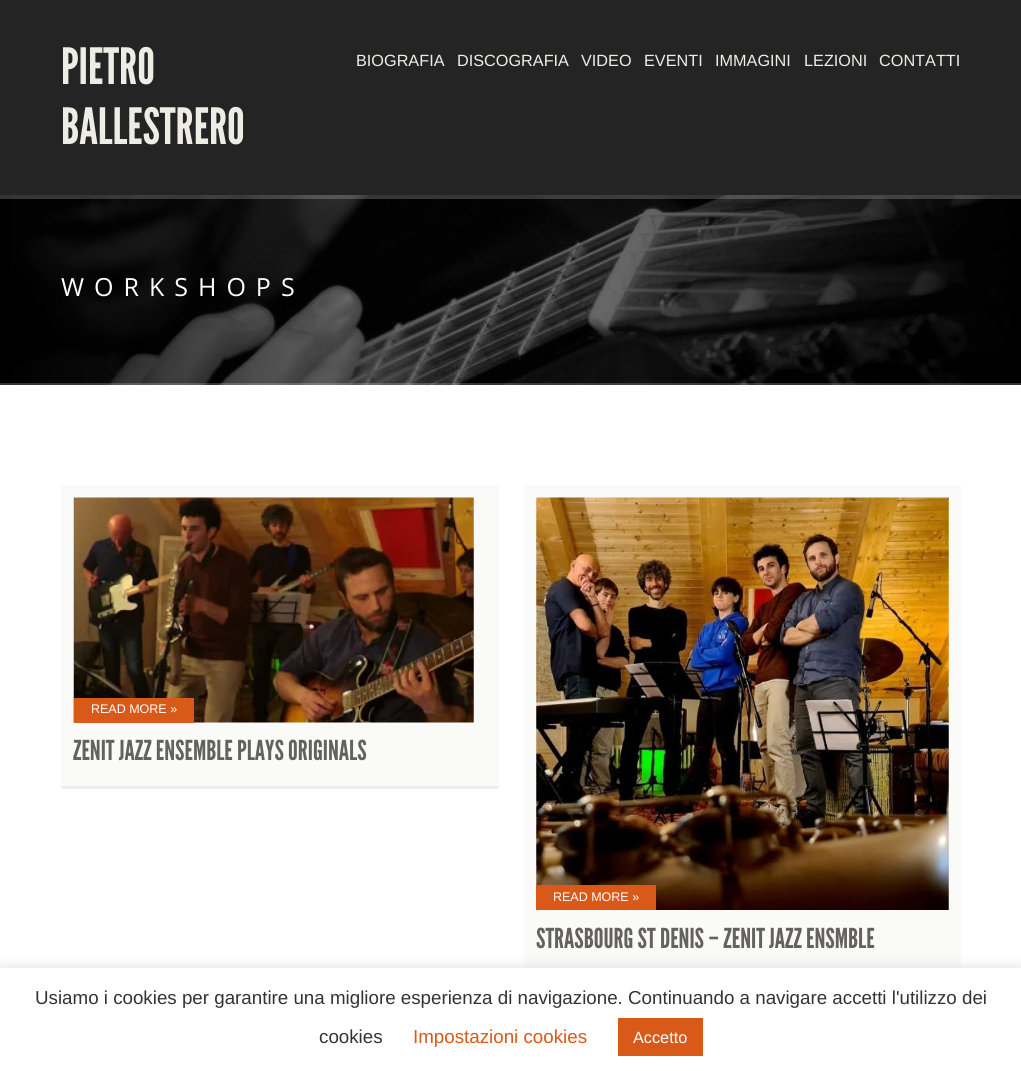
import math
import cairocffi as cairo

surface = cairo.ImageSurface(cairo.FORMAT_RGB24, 1021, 1071)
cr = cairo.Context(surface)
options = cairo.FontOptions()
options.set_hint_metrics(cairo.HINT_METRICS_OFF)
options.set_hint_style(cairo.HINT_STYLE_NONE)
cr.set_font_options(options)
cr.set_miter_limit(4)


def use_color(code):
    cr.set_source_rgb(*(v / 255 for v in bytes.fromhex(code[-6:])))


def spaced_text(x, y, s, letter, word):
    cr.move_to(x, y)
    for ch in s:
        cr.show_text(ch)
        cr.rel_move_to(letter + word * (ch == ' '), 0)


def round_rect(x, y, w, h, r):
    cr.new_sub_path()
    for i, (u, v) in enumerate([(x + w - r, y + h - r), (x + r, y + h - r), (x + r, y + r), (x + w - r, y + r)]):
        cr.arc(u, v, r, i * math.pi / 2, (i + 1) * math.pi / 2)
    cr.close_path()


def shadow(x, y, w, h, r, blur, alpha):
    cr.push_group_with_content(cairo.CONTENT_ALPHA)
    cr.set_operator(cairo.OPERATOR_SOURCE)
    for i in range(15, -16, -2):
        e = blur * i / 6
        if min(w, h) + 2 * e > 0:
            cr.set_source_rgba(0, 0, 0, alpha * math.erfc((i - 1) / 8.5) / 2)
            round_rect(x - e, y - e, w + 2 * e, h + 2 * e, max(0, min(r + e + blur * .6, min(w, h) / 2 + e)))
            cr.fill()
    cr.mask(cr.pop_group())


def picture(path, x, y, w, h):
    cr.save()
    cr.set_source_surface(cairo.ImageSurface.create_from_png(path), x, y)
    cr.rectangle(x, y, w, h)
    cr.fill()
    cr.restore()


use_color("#ffffff")
cr.paint()
use_color("#242424")
cr.rectangle(0, 0, 1021, 195)
cr.fill()
cr.select_font_face("League Gothic")
cr.set_font_size(50)
use_color("#eeede5")
cr.move_to(61, 84)
cr.show_text("PIETRO")
cr.move_to(61, 144)
cr.show_text("BALLESTRERO")
cr.select_font_face("Liberation Sans")
cr.set_font_size(16.25)
cr.move_to(356, 66)
cr.show_text("BIOGRAFIA")
cr.move_to(457, 66)
cr.show_text("DISCOGRAFIA")
cr.move_to(581, 66)
cr.show_text("VIDEO")
cr.move_to(644, 66)
cr.show_text("EVENTI")
cr.move_to(715, 66)
cr.show_text("IMMAGINI")
cr.move_to(804, 66)
cr.show_text("LEZIONI")
cr.move_to(879, 66)
cr.show_text("CONTATTI")
picture("img1.png", 0, 195, 1021, 190)
cr.set_source_rgba(1, 1, 1, 0.2)
cr.rectangle(0, 195, 1021, 4)
cr.fill()
cr.rectangle(0, 383, 1021, 2)
cr.fill()
cr.select_font_face("Open Sans")
cr.set_font_size(25)
use_color("#ffffff")
spaced_text(61, 296, "WORKSHOPS", 10, 0)
use_color("#fafaf8")
cr.rectangle(61, 485, 438, 301)
cr.fill()
use_color("#eeeeec")
cr.rectangle(61, 786, 438, 3)
cr.fill()
picture("img2.png", 73, 497, 401, 226)
use_color("#d95919")
cr.rectangle(74, 698, 120, 25)
cr.fill()
cr.select_font_face("Liberation Sans")
cr.set_font_size(12.5)
use_color("#ffffff")
cr.move_to(91, 713)
cr.show_text("READ MORE »")
cr.select_font_face("League Gothic")
cr.set_font_size(27.5)
use_color("#63625f")
cr.move_to(73, 760)
cr.show_text("ZENIT JAZZ ENSEMBLE PLAYS ORIGINALS")
use_color("#fafaf8")
cr.rectangle(524, 485, 437, 483)
cr.fill()
picture("img3.png", 536, 497, 413, 413)
use_color("#d95919")
cr.rectangle(536, 885, 120, 25)
cr.fill()
cr.select_font_face("Liberation Sans")
cr.set_font_size(12.5)
use_color("#ffffff")
cr.move_to(553, 901)
cr.show_text("READ MORE »")
cr.select_font_face("League Gothic")
cr.set_font_size(27.5)
use_color("#63625f")
cr.move_to(536, 948)
cr.show_text("STRASBOURG ST DENIS – ZENIT JAZZ ENSMBLE")
use_color("#acabab")
shadow(0, 966, 1021, 104, 0, 6, 0.3)
use_color("#ffffff")
cr.rectangle(0, 968, 1021, 103)
cr.fill()
cr.select_font_face("Liberation Sans")
cr.set_font_size(18.75)
use_color("#333333")
cr.move_to(35, 1004)
cr.show_text("Usiamo i cookies per garantire una migliore esperienza di navigazione. Continuando a navigare accetti l'utilizzo dei")
cr.move_to(319, 1043)
cr.show_text("cookies")
use_color("#d95919")
cr.move_to(413, 1043)
cr.show_text("Impostazioni cookies")
cr.rectangle(618, 1018, 85, 38)
cr.fill()
cr.set_font_size(16.25)
use_color("#ffffff")
cr.move_to(633, 1043)
cr.show_text("Accetto")
surface.write_to_png("result.png")
